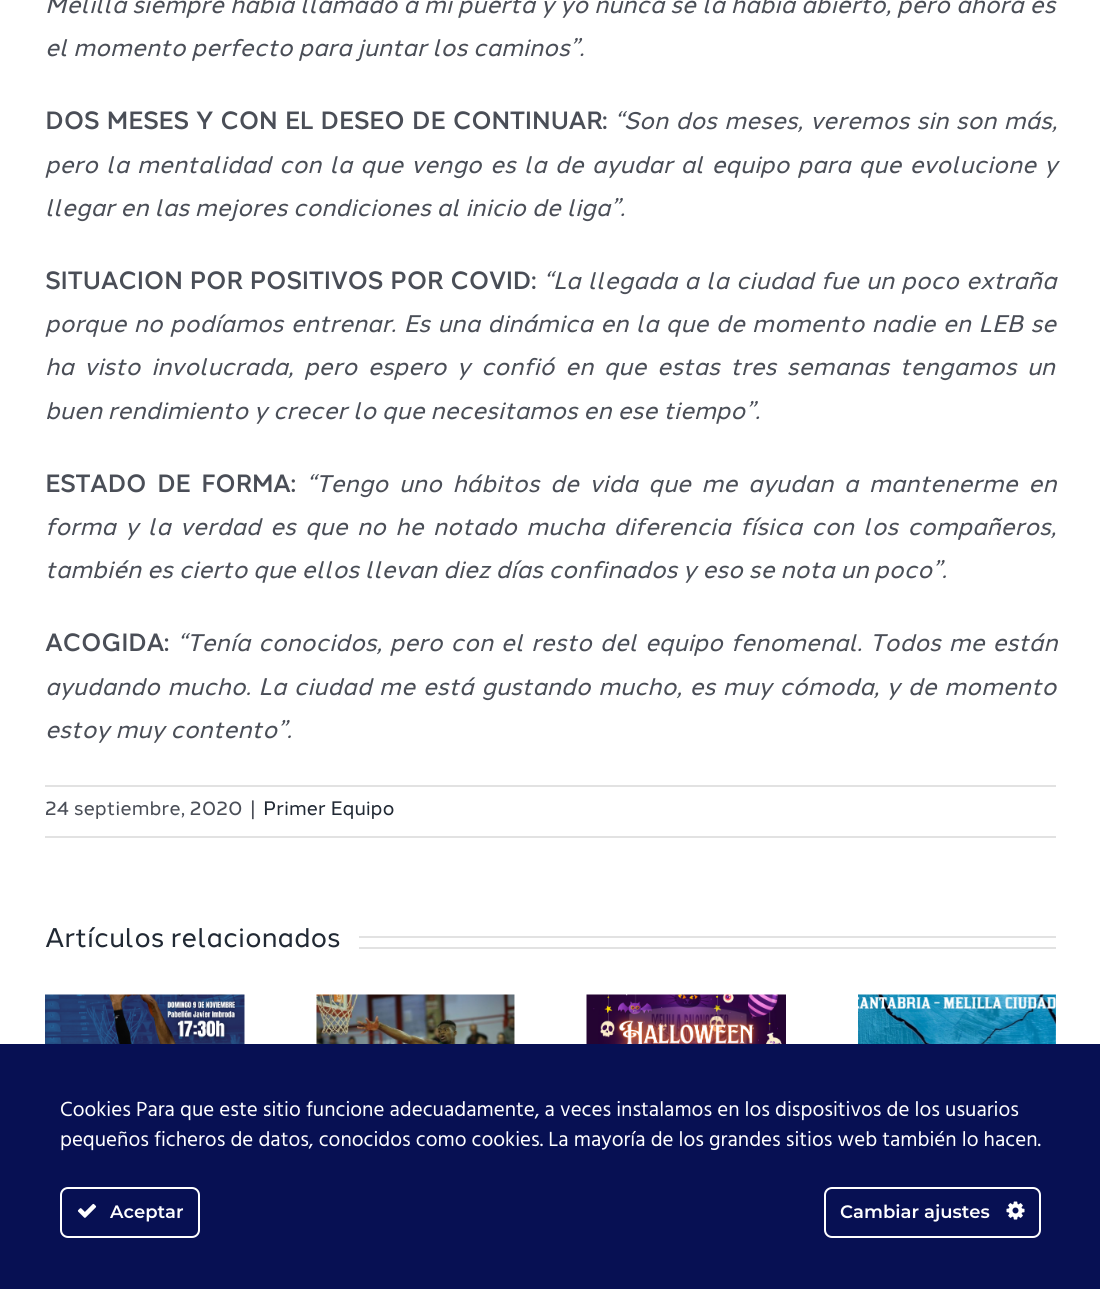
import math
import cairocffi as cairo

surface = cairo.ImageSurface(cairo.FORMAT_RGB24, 1100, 1289)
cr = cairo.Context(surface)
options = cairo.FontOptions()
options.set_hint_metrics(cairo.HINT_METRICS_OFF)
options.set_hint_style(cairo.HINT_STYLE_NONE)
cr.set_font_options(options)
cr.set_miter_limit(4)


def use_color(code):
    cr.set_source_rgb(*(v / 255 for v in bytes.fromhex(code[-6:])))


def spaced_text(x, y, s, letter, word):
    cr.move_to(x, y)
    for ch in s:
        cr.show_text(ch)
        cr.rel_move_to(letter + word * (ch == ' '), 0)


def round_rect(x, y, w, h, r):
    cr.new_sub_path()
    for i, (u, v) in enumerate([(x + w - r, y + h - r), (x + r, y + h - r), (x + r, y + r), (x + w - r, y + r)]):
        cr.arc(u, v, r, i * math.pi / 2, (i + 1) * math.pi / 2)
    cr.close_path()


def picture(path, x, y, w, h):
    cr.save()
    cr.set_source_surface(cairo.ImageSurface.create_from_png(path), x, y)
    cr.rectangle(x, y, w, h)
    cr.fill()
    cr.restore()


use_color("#ffffff")
cr.paint()
cr.select_font_face("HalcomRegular", cairo.FONT_SLANT_ITALIC)
cr.set_font_size(24)
use_color("#4a4e57")
spaced_text(45, 13, "Melilla siempre había llamado a mi puerta y yo nunca se la había abierto, pero ahora es", 0, 0.1)
cr.move_to(45, 56)
cr.show_text("el momento perfecto para juntar los caminos”.")
cr.select_font_face("HalcomRegular", cairo.FONT_SLANT_NORMAL, cairo.FONT_WEIGHT_BOLD)
spaced_text(45, 129, "DOS MESES Y CON EL DESEO DE CONTINUAR:", 0, 1.5)
cr.select_font_face("HalcomRegular", cairo.FONT_SLANT_ITALIC)
spaced_text(614, 129, "“Son dos meses, veremos sin son más,", 0, 1.5)
spaced_text(45, 173, "pero la mentalidad con la que vengo es la de ayudar al equipo para que evolucione y", 0, 2.25)
cr.move_to(45, 216)
cr.show_text("llegar en las mejores condiciones al inicio de liga”.")
cr.select_font_face("HalcomRegular", cairo.FONT_SLANT_NORMAL, cairo.FONT_WEIGHT_BOLD)
spaced_text(45, 289, "SITUACION POR POSITIVOS POR COVID:", 0, 1.25)
cr.select_font_face("HalcomRegular", cairo.FONT_SLANT_ITALIC)
spaced_text(543, 289, "“La llegada a la ciudad fue un poco extraña", 0, 1.25)
spaced_text(45, 332, "porque no podíamos entrenar. Es una dinámica en la que de momento nadie en LEB se", 0, 1.5)
spaced_text(45, 375, "ha visto involucrada, pero espero y confió en que estas tres semanas tengamos un", 0, 4.75)
cr.move_to(45, 419)
cr.show_text("buen rendimiento y crecer lo que necesitamos en ese tiempo”.")
cr.select_font_face("HalcomRegular", cairo.FONT_SLANT_NORMAL, cairo.FONT_WEIGHT_BOLD)
spaced_text(45, 492, "ESTADO DE FORMA:", 0, 4.75)
cr.select_font_face("HalcomRegular", cairo.FONT_SLANT_ITALIC)
spaced_text(306, 492, "“Tengo uno hábitos de vida que me ayudan a mantenerme en", 0, 4.75)
spaced_text(45, 535, "forma y la verdad es que no he notado mucha diferencia física con los compañeros,", 0, 3.5)
cr.move_to(45, 578)
cr.show_text("también es cierto que ellos llevan diez días confinados y eso se nota un poco”.")
cr.select_font_face("HalcomRegular", cairo.FONT_SLANT_NORMAL, cairo.FONT_WEIGHT_BOLD)
cr.move_to(45, 651)
cr.show_text("ACOGIDA:")
cr.select_font_face("HalcomRegular", cairo.FONT_SLANT_ITALIC)
spaced_text(177, 651, "“Tenía conocidos, pero con el resto del equipo fenomenal. Todos me están", 0, 2)
spaced_text(45, 695, "ayudando mucho. La ciudad me está gustando mucho, es muy cómoda, y de momento", 0, 1.75)
cr.move_to(45, 738)
cr.show_text("estoy muy contento”.")
use_color("#e2e2e2")
cr.rectangle(45, 785, 1011, 2)
cr.fill()
cr.rectangle(45, 836, 1011, 2)
cr.fill()
cr.select_font_face("HalcomRegular")
cr.set_font_size(19.5)
use_color("#4a4e57")
cr.move_to(45, 815)
cr.show_text("24 septiembre, 2020")
cr.move_to(250, 815)
cr.show_text("|")
use_color("#212934")
cr.move_to(263, 815)
cr.show_text("Primer Equipo")
cr.set_font_size(27)
cr.move_to(45, 947)
cr.show_text("Artículos relacionados")
use_color("#e2e2e2")
cr.rectangle(359, 936, 697, 2)
cr.fill()
cr.rectangle(359, 947, 697, 2)
cr.fill()
picture("img1.png", 45, 994, 200, 50)
picture("img2.png", 316, 994, 199, 50)
picture("img3.png", 586, 994, 200, 50)
picture("img4.png", 858, 994, 198, 50)
use_color("#071053")
cr.rectangle(0, 1044, 1100, 245)
cr.fill()
cr.select_font_face("Hind")
cr.set_font_size(21)
use_color("#ffffff")
cr.move_to(60, 1116)
cr.show_text("Cookies Para que este sitio funcione adecuadamente, a veces instalamos en los dispositivos de los usuarios")
cr.move_to(60, 1146)
cr.show_text("pequeños ficheros de datos, conocidos como cookies. La mayoría de los grandes sitios web también lo hacen.")
round_rect(61, 1188, 138, 49, 7)
cr.stroke()
picture("img5.png", 77, 1203, 20, 15)
cr.select_font_face("Montserrat SemiBold")
cr.set_font_size(18)
cr.move_to(110, 1218)
cr.show_text("Aceptar")
round_rect(825, 1188, 215, 49, 7)
cr.stroke()
cr.move_to(840, 1218)
cr.show_text("Cambiar ajustes")
picture("img6.png", 1006, 1201, 19, 19)
surface.write_to_png("result.png")
